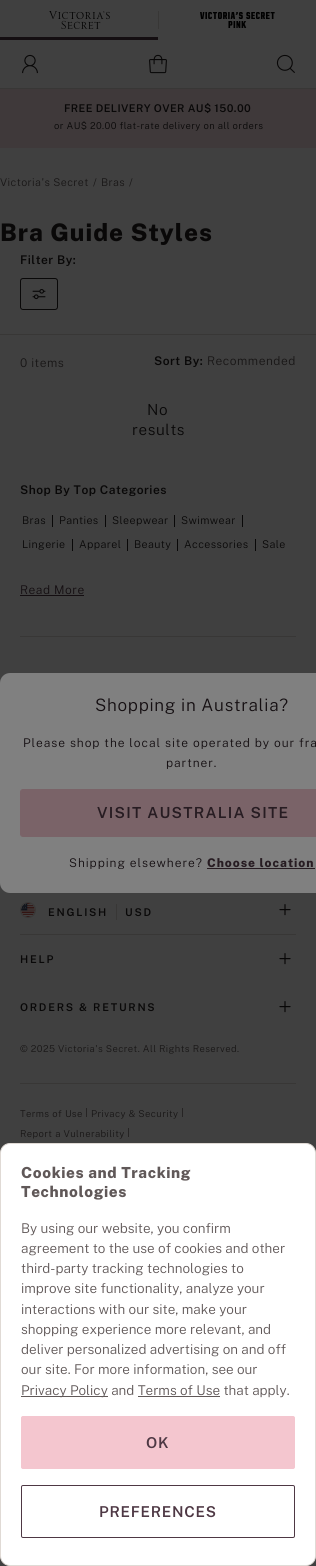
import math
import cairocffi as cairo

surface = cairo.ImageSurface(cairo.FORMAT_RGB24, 316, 1566)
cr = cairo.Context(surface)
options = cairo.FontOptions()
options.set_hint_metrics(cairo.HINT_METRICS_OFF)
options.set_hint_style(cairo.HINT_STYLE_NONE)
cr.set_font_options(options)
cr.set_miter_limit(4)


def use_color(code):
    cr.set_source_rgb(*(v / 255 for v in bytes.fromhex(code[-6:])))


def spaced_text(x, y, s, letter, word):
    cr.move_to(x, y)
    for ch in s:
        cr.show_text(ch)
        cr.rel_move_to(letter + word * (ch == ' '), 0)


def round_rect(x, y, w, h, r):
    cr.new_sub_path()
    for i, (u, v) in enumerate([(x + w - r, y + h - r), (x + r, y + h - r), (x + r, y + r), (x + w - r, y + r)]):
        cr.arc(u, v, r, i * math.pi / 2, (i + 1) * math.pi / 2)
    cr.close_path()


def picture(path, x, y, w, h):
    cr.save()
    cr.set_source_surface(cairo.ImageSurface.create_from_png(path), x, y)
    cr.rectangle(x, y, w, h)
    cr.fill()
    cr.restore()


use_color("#404040")
cr.paint()
use_color("#140e11")
cr.rectangle(0, 37, 158, 3)
cr.fill()
picture("img1.png", 49, 11, 61, 18)
use_color("#383736")
cr.rectangle(158, 11, 1, 18)
cr.fill()
picture("img2.png", 200, 12, 75, 16)
cr.rectangle(0, 88, 316, 1)
cr.fill()
picture("img3.png", 22, 54, 16, 20)
picture("img4.png", 149, 54, 18, 20)
picture("img5.png", 276, 54, 19, 19)
use_color("#3f393a")
cr.rectangle(0, 89, 316, 59)
cr.fill()
cr.select_font_face("Public Sans SemiBold")
cr.set_font_size(10.7)
use_color("#090808")
spaced_text(64, 112, "FREE DELIVERY OVER AU$ 150.00", 0.4, 0)
cr.select_font_face("Public Sans Light")
cr.set_font_size(9.5)
spaced_text(54, 129, "or AU$ 20.00 flat-rate delivery on all orders", 0.4, 0)
cr.set_font_size(10.7)
use_color("#181616")
spaced_text(0, 186, "Victoria's Secret", 0.4, 0)
spaced_text(93, 186, "/", 0.4, 0)
spaced_text(101, 186, "Bras", 0.4, 0)
spaced_text(129, 186, "/", 0.4, 0)
cr.select_font_face("Public Sans ExtraBold")
cr.set_font_size(24.25)
use_color("#090808")
spaced_text(0, 241, "Bra Guide Styles", 1, 0)
cr.select_font_face("Public Sans SemiBold")
cr.set_font_size(12)
spaced_text(20, 264, "Filter By:", 0.5, 0)
round_rect(20.5, 278.5, 37, 31, 2.5)
cr.set_line_width(1)
cr.stroke()
picture("img6.png", 32, 289, 14, 11)
use_color("#383736")
cr.rectangle(0, 334, 316, 1)
cr.fill()
cr.select_font_face("Public Sans Light")
use_color("#181616")
spaced_text(20, 367, "0 items", 0.5, 0)
cr.select_font_face("Public Sans SemiBold")
use_color("#090808")
spaced_text(154, 365, "Sort By:", 0.5, 0)
cr.select_font_face("Public Sans Light")
use_color("#181616")
spaced_text(207, 365, "Recommended", 0.5, 0)
cr.set_font_size(15.25)
use_color("#090808")
spaced_text(147, 415, "No", 0.6, 0)
spaced_text(132, 435, "results", 0.6, 0)
cr.select_font_face("Public Sans SemiBold")
cr.set_font_size(12)
spaced_text(20, 494, "Shop By Top Categories", 0.5, 0)
cr.select_font_face("Public Sans Light")
cr.set_font_size(10.7)
spaced_text(22, 524, "Bras", 0.4, 0)
cr.rectangle(52, 515, 1, 12)
cr.fill()
spaced_text(59, 524, "Panties", 0.4, 0)
cr.rectangle(105, 515, 1, 12)
cr.fill()
spaced_text(112, 524, "Sleepwear", 0.4, 0)
cr.rectangle(174, 515, 1, 12)
cr.fill()
spaced_text(181, 524, "Swimwear", 0.4, 0)
cr.rectangle(242, 515, 1, 12)
cr.fill()
spaced_text(22, 548, "Lingerie", 0.4, 0)
cr.rectangle(72, 539, 1, 12)
cr.fill()
spaced_text(79, 548, "Apparel", 0.4, 0)
cr.rectangle(127, 539, 1, 12)
cr.fill()
spaced_text(134, 548, "Beauty", 0.4, 0)
cr.rectangle(177, 539, 1, 12)
cr.fill()
spaced_text(184, 548, "Accessories", 0.4, 0)
cr.rectangle(255, 539, 1, 12)
cr.fill()
spaced_text(262, 548, "Sale", 0.4, 0)
cr.set_font_size(12)
use_color("#140e11")
spaced_text(20, 594, "Read More", 0.5, 0)
cr.rectangle(20, 595, 64, 1)
cr.fill()
use_color("#383736")
cr.rectangle(20, 636, 276, 1)
cr.fill()
cr.rectangle(20, 934, 276, 1)
cr.fill()
cr.arc(28, 910, 7.5, 0, 2 * math.pi)
cr.stroke()
picture("img7.png", 21, 903, 14, 14)
cr.select_font_face("Public Sans SemiBold")
cr.set_font_size(10.7)
use_color("#090808")
spaced_text(48, 916, "ENGLISH", 1.75, 0)
use_color("#383736")
cr.rectangle(116, 904, 1, 16)
cr.fill()
use_color("#090808")
spaced_text(125, 916, "USD", 1.75, 0)
picture("img8.png", 279, 904, 12, 12)
spaced_text(20, 963, "HELP", 1.75, 0)
picture("img8.png", 279, 953, 12, 12)
spaced_text(20, 1011, "ORDERS & RETURNS", 1.75, 0)
picture("img8.png", 279, 1001, 12, 12)
cr.select_font_face("Public Sans Light")
cr.set_font_size(9.5)
use_color("#181616")
spaced_text(20, 1052, "© 2025 Victoria's Secret. All Rights Reserved.", 0.4, 0)
use_color("#383736")
cr.rectangle(20, 1083, 276, 1)
cr.fill()
use_color("#181616")
spaced_text(20, 1117, "Terms of Use", 0.4, 0)
use_color("#262424")
cr.rectangle(86, 1108, 1, 9)
cr.fill()
use_color("#181616")
spaced_text(91, 1117, "Privacy & Security", 0.4, 0)
use_color("#262424")
cr.rectangle(182, 1108, 1, 9)
cr.fill()
use_color("#181616")
spaced_text(20, 1137, "Report a Vulnerability", 0.4, 0)
use_color("#262424")
cr.rectangle(128, 1128, 1, 9)
cr.fill()
use_color("#808080")
round_rect(0, 673, 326, 220, 10)
cr.fill()
cr.set_font_size(17.1)
use_color("#140e11")
spaced_text(95, 711, "Shopping in Australia?", 0.7, 0)
cr.set_font_size(12)
spaced_text(23, 747, "Please shop the local site operated by our fra", 0.95, 0)
spaced_text(166, 767, "partner.", 0.95, 0)
use_color("#7a6368")
round_rect(20.5, 789.5, 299, 47, 2.5)
cr.fill_preserve()
cr.stroke()
cr.select_font_face("Public Sans SemiBold")
cr.set_font_size(15.25)
use_color("#271c22")
spaced_text(97, 818, "VISIT AUSTRALIA SITE", 1.25, 0)
cr.select_font_face("Public Sans Light")
cr.set_font_size(12)
use_color("#140e11")
spaced_text(69, 867, "Shipping elsewhere?", 0.95, 0)
cr.select_font_face("Public Sans ExtraBold")
use_color("#271c22")
spaced_text(207, 867, "Choose location", 0.95, 0)
cr.rectangle(207, 868, 108, 1)
cr.fill()
use_color("#ffffff")
round_rect(0.5, 1143.5, 315, 422, 9.5)
cr.fill_preserve()
use_color("#e0dad5")
cr.stroke()
cr.set_font_size(15.25)
use_color("#605858")
spaced_text(21, 1178, "Cookies and Tracking", 0.6, 0)
spaced_text(21, 1197, "Technologies", 0.6, 0)
cr.select_font_face("Public Sans Light")
cr.set_font_size(13.5)
cr.move_to(21, 1233)
cr.show_text("By using our website, you confirm")
cr.move_to(21, 1253)
cr.show_text("agreement to the use of cookies and other")
cr.move_to(21, 1273)
cr.show_text("third-party tracking technologies to")
cr.move_to(21, 1293)
cr.show_text("improve site functionality, analyze your")
cr.move_to(21, 1314)
cr.show_text("interactions with our site, make your")
cr.move_to(21, 1334)
cr.show_text("shopping experience more relevant, and")
cr.move_to(21, 1354)
cr.show_text("deliver personalized advertising on and off")
cr.move_to(21, 1374)
cr.show_text("our site. For more information, see our")
cr.rectangle(21, 1396, 87, 1)
cr.fill()
cr.move_to(21, 1395)
cr.show_text("Privacy Policy and Terms of Use that apply.")
cr.rectangle(138, 1396, 82, 1)
cr.fill()
use_color("#f4c6cf")
round_rect(21.5, 1416.5, 273, 52, 1.5)
cr.fill_preserve()
cr.stroke()
cr.select_font_face("Public Sans SemiBold")
cr.set_font_size(15)
use_color("#4e3844")
spaced_text(146, 1448, "OK", 0.75, 0)
round_rect(21.5, 1485.5, 273, 52, 1.5)
cr.stroke()
spaced_text(99, 1517, "PREFERENCES", 0.75, 0)
surface.write_to_png("result.png")
